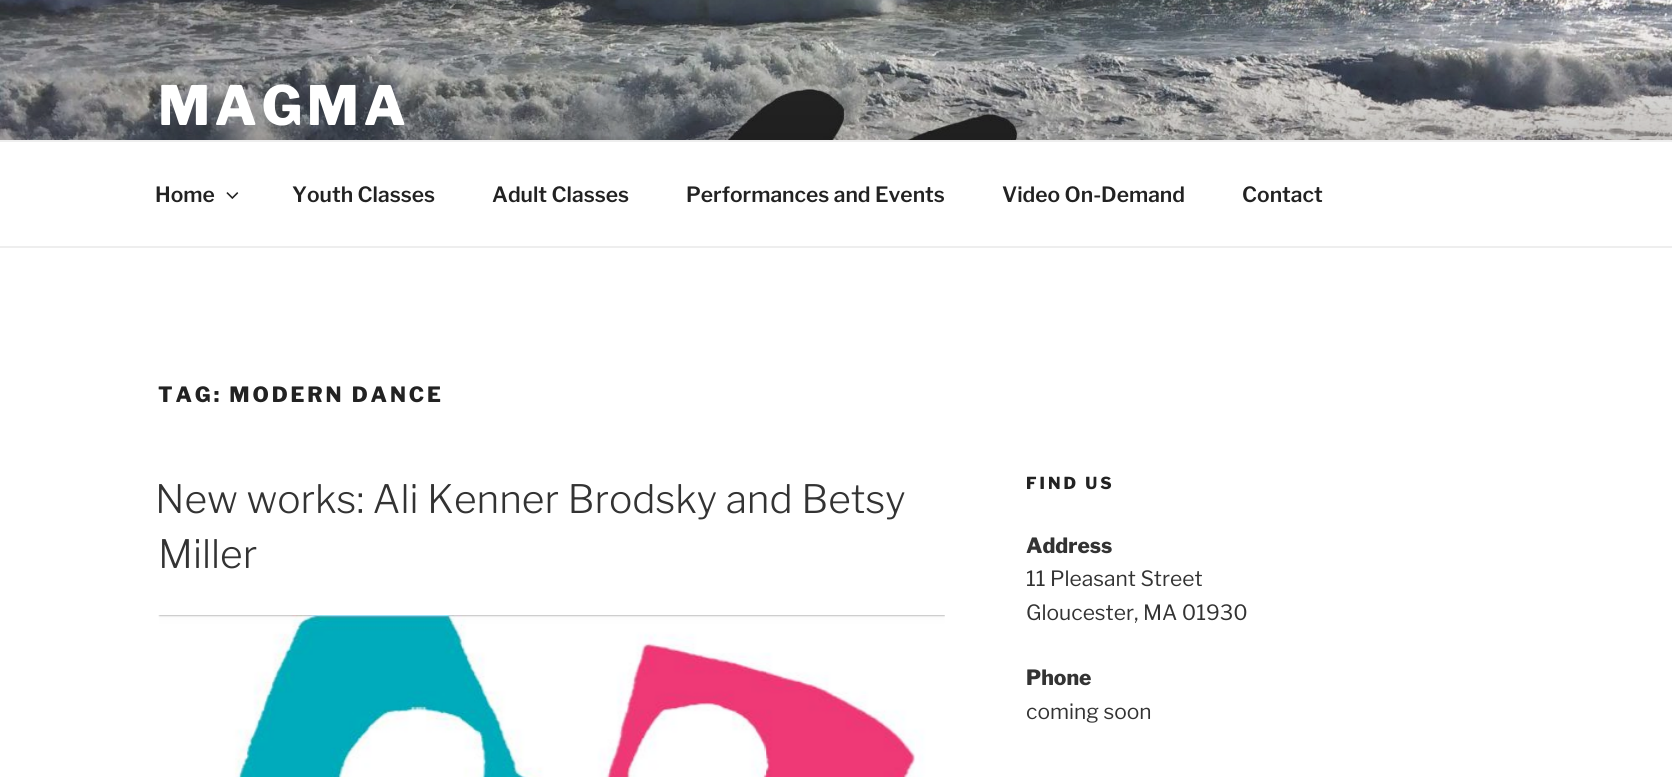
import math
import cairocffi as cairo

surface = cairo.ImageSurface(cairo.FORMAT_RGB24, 1672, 777)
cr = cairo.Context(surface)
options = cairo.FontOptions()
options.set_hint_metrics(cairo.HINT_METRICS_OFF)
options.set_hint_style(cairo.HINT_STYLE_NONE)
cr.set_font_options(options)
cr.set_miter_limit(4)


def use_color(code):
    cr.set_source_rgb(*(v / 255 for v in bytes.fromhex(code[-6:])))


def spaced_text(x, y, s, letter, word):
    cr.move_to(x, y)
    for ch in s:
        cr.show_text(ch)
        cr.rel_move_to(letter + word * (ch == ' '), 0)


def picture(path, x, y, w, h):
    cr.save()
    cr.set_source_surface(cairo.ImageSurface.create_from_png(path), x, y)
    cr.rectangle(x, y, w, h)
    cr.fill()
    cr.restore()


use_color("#ffffff")
cr.paint()
picture("img1.png", 0, 0, 1672, 140)
cr.select_font_face("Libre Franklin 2 Thin")
cr.set_font_size(54)
use_color("#ffffff")
spaced_text(158, 125, "MAGMA", 4.5, 0)
use_color("#eeeeee")
cr.rectangle(0, 140, 1672, 2)
cr.fill()
cr.rectangle(0, 246, 1672, 2)
cr.fill()
cr.select_font_face("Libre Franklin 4 Thin")
cr.set_font_size(21)
use_color("#222222")
cr.move_to(155, 202)
cr.show_text("Home")
picture("img2.png", 226, 192, 13, 7)
cr.move_to(292, 202)
cr.show_text("Youth Classes")
cr.move_to(492, 202)
cr.show_text("Adult Classes")
cr.move_to(686, 202)
cr.show_text("Performances and Events")
cr.move_to(1002, 202)
cr.show_text("Video On-Demand")
cr.move_to(1242, 202)
cr.show_text("Contact")
cr.select_font_face("Libre Franklin 2 Thin")
spaced_text(158, 402, "TAG: MODERN DANCE", 2.9, 0)
cr.select_font_face("Libre Franklin Thin")
cr.set_font_size(39)
use_color("#333333")
cr.move_to(155, 513)
cr.show_text("New works: Ali Kenner Brodsky and Betsy")
cr.move_to(158, 568)
cr.show_text("Miller")
picture("img3.png", 158, 615, 787, 162)
cr.select_font_face("Libre Franklin 2 Thin")
cr.set_font_size(16.5)
use_color("#222222")
spaced_text(1026, 489, "FIND US", 3, 0)
cr.set_font_size(21)
use_color("#333333")
cr.move_to(1026, 553)
cr.show_text("Address")
cr.select_font_face("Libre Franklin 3 Thin")
cr.move_to(1026, 586)
cr.show_text("11 Pleasant Street")
cr.move_to(1026, 620)
cr.show_text("Gloucester, MA 01930")
cr.select_font_face("Libre Franklin 2 Thin")
cr.move_to(1026, 685)
cr.show_text("Phone")
cr.select_font_face("Libre Franklin 3 Thin")
cr.move_to(1026, 719)
cr.show_text("coming soon")
surface.write_to_png("result.png")
